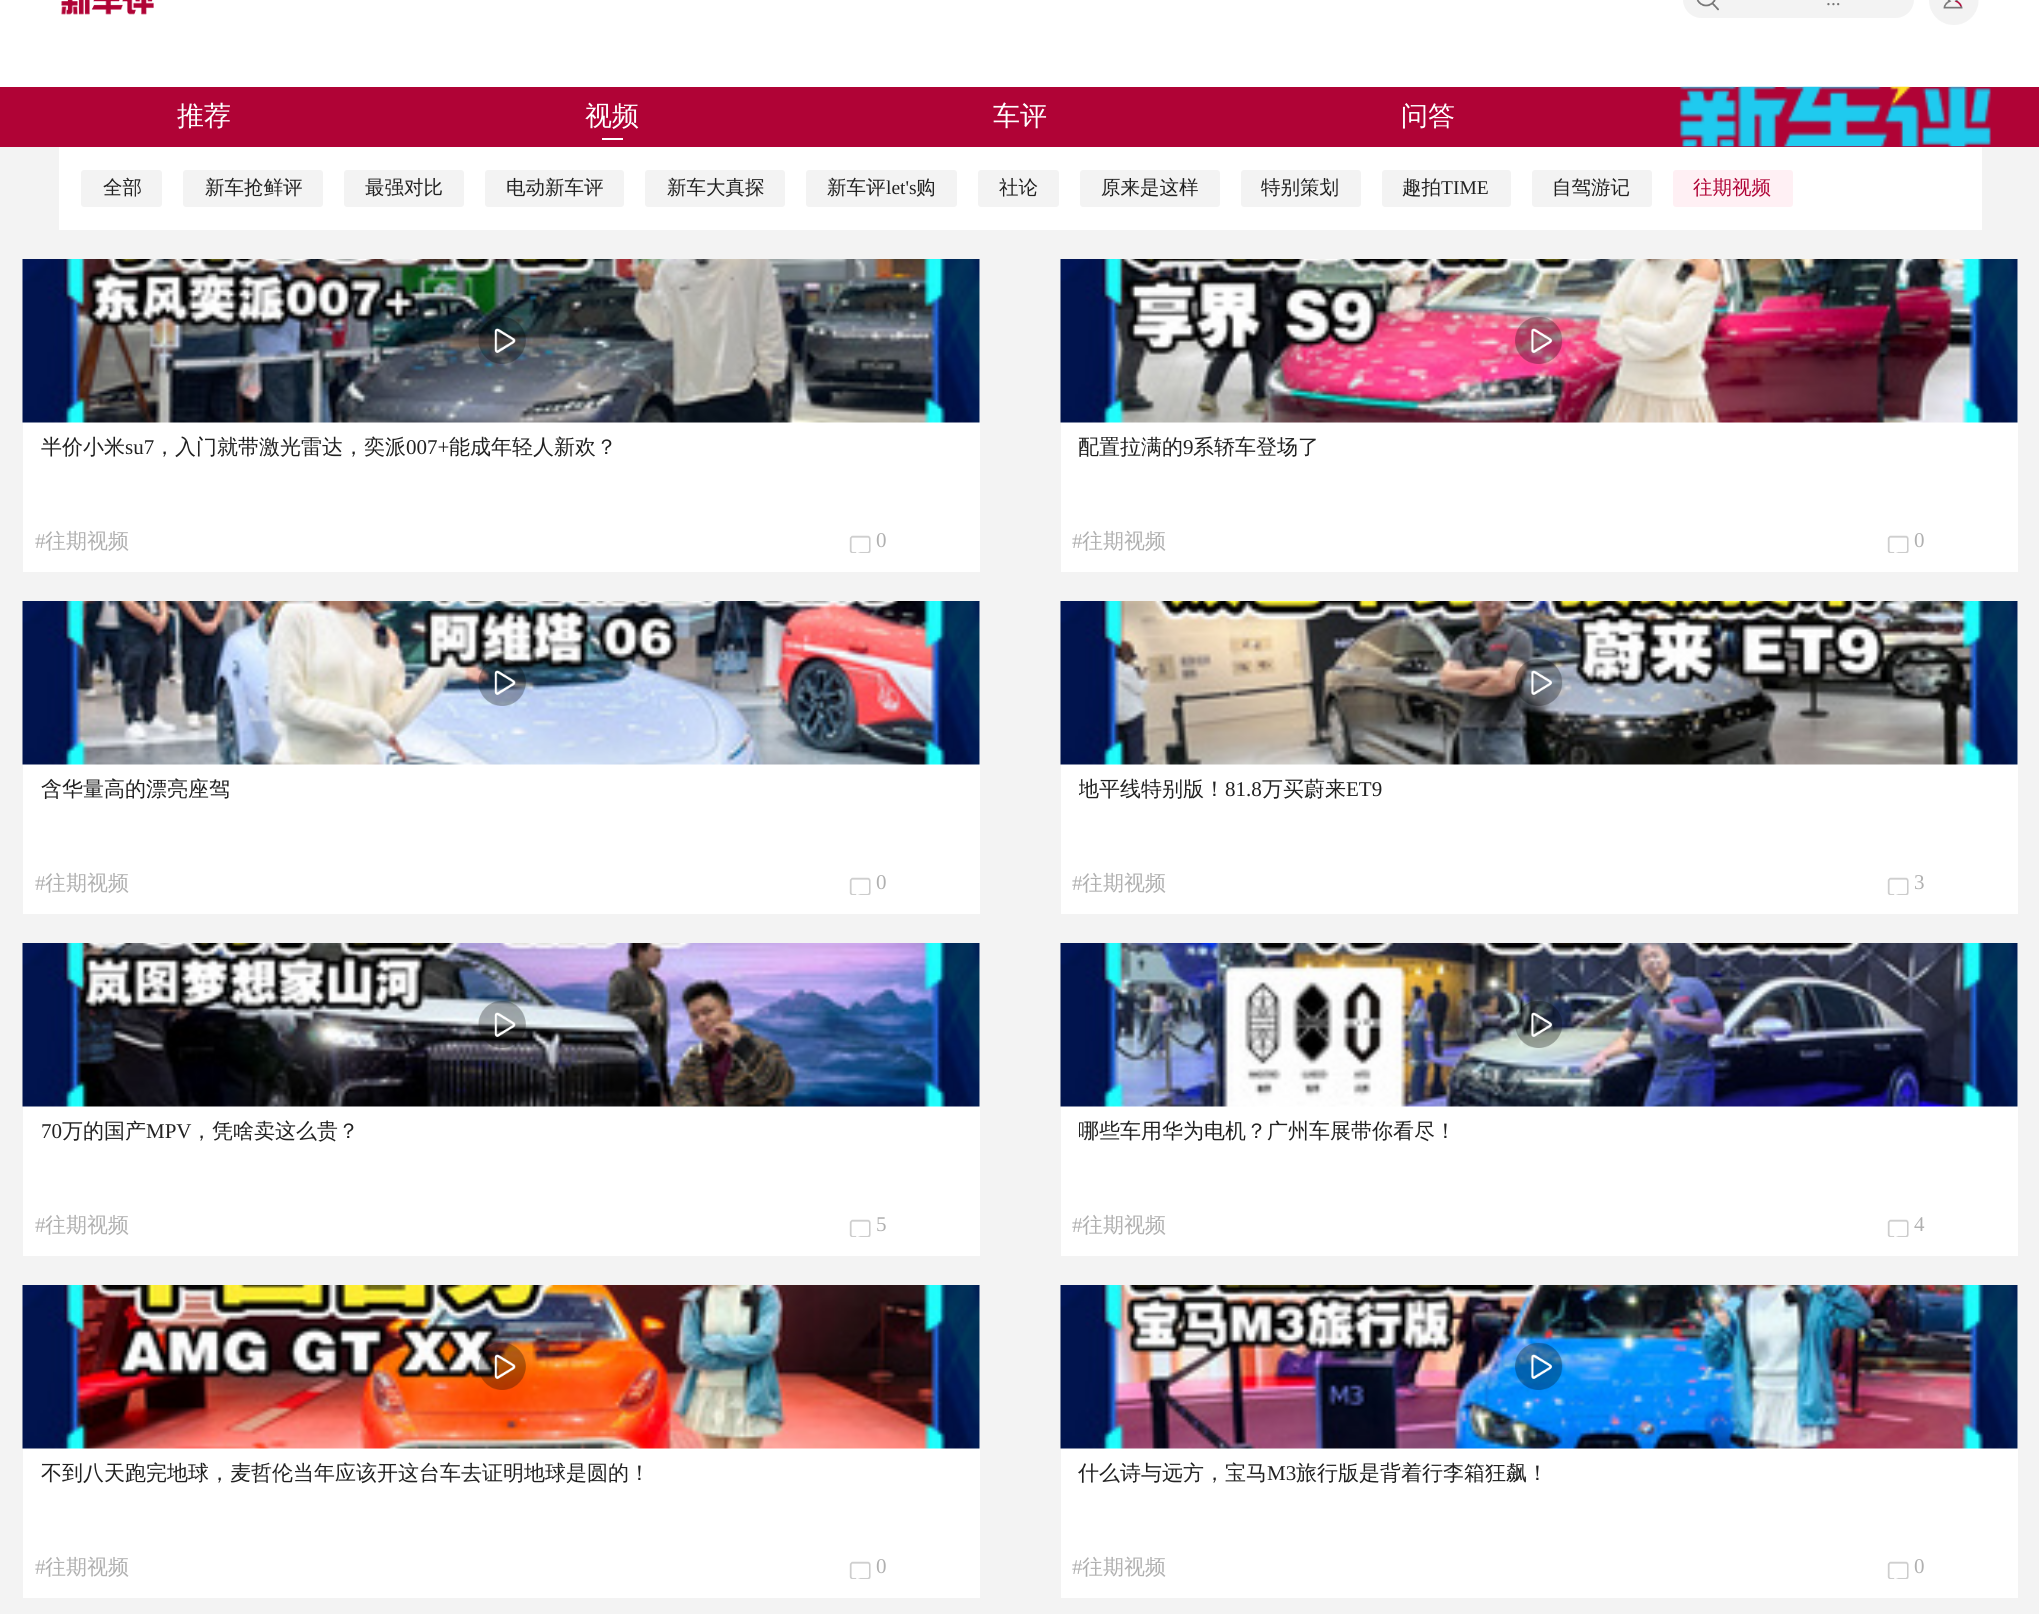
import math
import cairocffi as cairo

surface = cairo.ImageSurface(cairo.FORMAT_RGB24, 2039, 1614)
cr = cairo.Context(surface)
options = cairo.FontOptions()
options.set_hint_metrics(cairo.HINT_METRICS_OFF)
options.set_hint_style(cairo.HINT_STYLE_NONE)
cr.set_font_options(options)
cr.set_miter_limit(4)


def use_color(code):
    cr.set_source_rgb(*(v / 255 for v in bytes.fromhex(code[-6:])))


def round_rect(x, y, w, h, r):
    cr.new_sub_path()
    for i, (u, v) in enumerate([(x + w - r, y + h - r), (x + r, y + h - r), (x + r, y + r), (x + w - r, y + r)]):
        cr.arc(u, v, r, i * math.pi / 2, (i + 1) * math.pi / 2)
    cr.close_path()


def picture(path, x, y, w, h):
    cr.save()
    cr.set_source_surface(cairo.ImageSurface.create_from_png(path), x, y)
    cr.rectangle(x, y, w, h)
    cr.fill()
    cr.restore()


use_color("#f3f3f3")
cr.paint()
use_color("#ffffff")
cr.rectangle(0, 0, 2039, 87)
cr.fill()
picture("img1.png", 61, 0, 93, 15)
use_color("#f3f3f3")
round_rect(1683, -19, 231, 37, 18.5)
cr.fill()
picture("img2.png", 1696, 0, 23, 11)
cr.select_font_face("Liberation Serif")
cr.set_font_size(19.5)
use_color("#757575")
cr.move_to(1826, 5)
cr.show_text("...")
picture("img3.png", 1929, 0, 50, 25)
use_color("#b00336")
cr.rectangle(0, 87, 2039, 60)
cr.fill()
cr.select_font_face("WenQuanYi Zen Hei Medium")
cr.set_font_size(27)
use_color("#ffffff")
cr.move_to(177, 125)
cr.show_text("推荐")
cr.move_to(585, 125)
cr.show_text("视频")
cr.rectangle(602, 138, 21, 2)
cr.fill()
cr.move_to(993, 125)
cr.show_text("车评")
cr.move_to(1401, 125)
cr.show_text("问答")
picture("img4.png", 1679, 86, 312, 61)
cr.rectangle(59, 147, 1923, 83)
cr.fill()
use_color("#f3f3f3")
round_rect(81, 170, 81, 37, 3)
cr.fill()
cr.set_font_size(19.5)
use_color("#212121")
cr.move_to(103, 194)
cr.show_text("全部")
use_color("#f3f3f3")
round_rect(183, 170, 140, 37, 3)
cr.fill()
use_color("#212121")
cr.move_to(205, 194)
cr.show_text("新车抢鲜评")
use_color("#f3f3f3")
round_rect(344, 170, 120, 37, 3)
cr.fill()
use_color("#212121")
cr.move_to(365, 194)
cr.show_text("最强对比")
use_color("#f3f3f3")
round_rect(485, 170, 139, 37, 3)
cr.fill()
use_color("#212121")
cr.move_to(506, 194)
cr.show_text("电动新车评")
use_color("#f3f3f3")
round_rect(645, 170, 140, 37, 3)
cr.fill()
use_color("#212121")
cr.move_to(667, 194)
cr.show_text("新车大真探")
use_color("#f3f3f3")
round_rect(806, 170, 151, 37, 3)
cr.fill()
use_color("#212121")
cr.move_to(827, 194)
cr.show_text("新车评")
cr.select_font_face("Liberation Serif")
cr.move_to(886, 194)
cr.show_text("let's")
cr.select_font_face("WenQuanYi Zen Hei Medium")
cr.move_to(916, 194)
cr.show_text("购")
use_color("#f3f3f3")
round_rect(978, 170, 81, 37, 3)
cr.fill()
use_color("#212121")
cr.move_to(999, 194)
cr.show_text("社论")
use_color("#f3f3f3")
round_rect(1080, 170, 140, 37, 3)
cr.fill()
use_color("#212121")
cr.move_to(1101, 194)
cr.show_text("原来是这样")
use_color("#f3f3f3")
round_rect(1241, 170, 120, 37, 3)
cr.fill()
use_color("#212121")
cr.move_to(1261, 194)
cr.show_text("特别策划")
use_color("#f3f3f3")
round_rect(1382, 170, 129, 37, 3)
cr.fill()
use_color("#212121")
cr.move_to(1402, 194)
cr.show_text("趣拍")
cr.select_font_face("Liberation Serif")
cr.move_to(1441, 194)
cr.show_text("TIME")
use_color("#f3f3f3")
round_rect(1532, 170, 120, 37, 3)
cr.fill()
cr.select_font_face("WenQuanYi Zen Hei Medium")
use_color("#212121")
cr.move_to(1552, 194)
cr.show_text("自驾游记")
use_color("#fff0f4")
round_rect(1673, 170, 120, 37, 3)
cr.fill()
use_color("#b00336")
cr.move_to(1693, 194)
cr.show_text("往期视频")
use_color("#ffffff")
cr.rectangle(23, 260, 957, 312)
cr.fill()
picture("img5.png", 22, 259, 958, 164)
picture("img6.png", 478, 317, 48, 47)
cr.set_font_size(21)
use_color("#212121")
cr.move_to(41, 454)
cr.show_text("半价小米")
cr.select_font_face("Liberation Serif")
cr.move_to(125, 454)
cr.show_text("su7")
cr.select_font_face("WenQuanYi Zen Hei Medium")
cr.move_to(154, 454)
cr.show_text("，入门就带激光雷达，奕派")
cr.select_font_face("Liberation Serif")
cr.move_to(406, 454)
cr.show_text("007+")
cr.select_font_face("WenQuanYi Zen Hei Medium")
cr.move_to(449, 454)
cr.show_text("能成年轻人新欢？")
cr.select_font_face("Liberation Serif")
use_color("#b0b0b0")
cr.move_to(35, 548)
cr.show_text("#")
cr.select_font_face("WenQuanYi Zen Hei Medium")
cr.move_to(45, 548)
cr.show_text("往期视频")
picture("img7.png", 849, 535, 22, 18)
cr.select_font_face("Liberation Serif")
cr.move_to(876, 547)
cr.show_text("0")
use_color("#ffffff")
cr.rectangle(1061, 260, 957, 312)
cr.fill()
picture("img8.png", 1060, 259, 958, 164)
picture("img9.png", 1515, 316, 48, 48)
cr.select_font_face("WenQuanYi Zen Hei Medium")
use_color("#212121")
cr.move_to(1078, 454)
cr.show_text("配置拉满的")
cr.select_font_face("Liberation Serif")
cr.move_to(1183, 454)
cr.show_text("9")
cr.select_font_face("WenQuanYi Zen Hei Medium")
cr.move_to(1193, 454)
cr.show_text("系轿车登场了")
cr.select_font_face("Liberation Serif")
use_color("#b0b0b0")
cr.move_to(1072, 548)
cr.show_text("#")
cr.select_font_face("WenQuanYi Zen Hei Medium")
cr.move_to(1082, 548)
cr.show_text("往期视频")
picture("img7.png", 1887, 535, 22, 18)
cr.select_font_face("Liberation Serif")
cr.move_to(1914, 547)
cr.show_text("0")
use_color("#ffffff")
cr.rectangle(23, 602, 957, 312)
cr.fill()
picture("img10.png", 22, 601, 958, 164)
picture("img11.png", 478, 658, 48, 48)
cr.select_font_face("WenQuanYi Zen Hei Medium")
use_color("#212121")
cr.move_to(41, 796)
cr.show_text("含华量高的漂亮座驾")
cr.select_font_face("Liberation Serif")
use_color("#b0b0b0")
cr.move_to(35, 890)
cr.show_text("#")
cr.select_font_face("WenQuanYi Zen Hei Medium")
cr.move_to(45, 890)
cr.show_text("往期视频")
picture("img7.png", 849, 877, 22, 18)
cr.select_font_face("Liberation Serif")
cr.move_to(876, 889)
cr.show_text("0")
use_color("#ffffff")
cr.rectangle(1061, 602, 957, 312)
cr.fill()
picture("img12.png", 1060, 601, 958, 164)
picture("img13.png", 1515, 658, 48, 48)
cr.save()
cr.rectangle(1079, 777, 921, 27)
cr.clip()
cr.select_font_face("WenQuanYi Zen Hei Medium")
use_color("#212121")
cr.move_to(1078, 796)
cr.show_text("地平线特别版！")
cr.restore()
use_color("#212121")
cr.move_to(1225, 796)
cr.show_text("81.8")
cr.select_font_face("WenQuanYi Zen Hei Medium")
cr.move_to(1262, 796)
cr.show_text("万买蔚来")
cr.select_font_face("Liberation Serif")
cr.move_to(1346, 796)
cr.show_text("ET9")
use_color("#b0b0b0")
cr.move_to(1072, 890)
cr.show_text("#")
cr.select_font_face("WenQuanYi Zen Hei Medium")
cr.move_to(1082, 890)
cr.show_text("往期视频")
picture("img7.png", 1887, 877, 22, 18)
cr.select_font_face("Liberation Serif")
cr.move_to(1914, 889)
cr.show_text("3")
use_color("#ffffff")
cr.rectangle(23, 944, 957, 312)
cr.fill()
picture("img14.png", 22, 943, 958, 164)
picture("img15.png", 478, 1000, 48, 48)
use_color("#212121")
cr.move_to(41, 1138)
cr.show_text("70")
cr.select_font_face("WenQuanYi Zen Hei Medium")
cr.move_to(62, 1138)
cr.show_text("万的国产")
cr.select_font_face("Liberation Serif")
cr.move_to(146, 1138)
cr.show_text("MPV")
cr.select_font_face("WenQuanYi Zen Hei Medium")
cr.move_to(191, 1138)
cr.show_text("，凭啥卖这么贵？")
cr.select_font_face("Liberation Serif")
use_color("#b0b0b0")
cr.move_to(35, 1232)
cr.show_text("#")
cr.select_font_face("WenQuanYi Zen Hei Medium")
cr.move_to(45, 1232)
cr.show_text("往期视频")
picture("img16.png", 849, 1219, 22, 18)
cr.select_font_face("Liberation Serif")
cr.move_to(876, 1231)
cr.show_text("5")
use_color("#ffffff")
cr.rectangle(1061, 944, 957, 312)
cr.fill()
picture("img17.png", 1060, 943, 958, 164)
picture("img18.png", 1515, 1001, 48, 47)
cr.save()
cr.rectangle(1079, 1119, 921, 27)
cr.clip()
cr.select_font_face("WenQuanYi Zen Hei Medium")
use_color("#212121")
cr.move_to(1078, 1138)
cr.show_text("哪些车用华为电机？广州车展带你看尽！")
cr.restore()
use_color("#b0b0b0")
cr.move_to(1072, 1232)
cr.show_text("#")
cr.select_font_face("WenQuanYi Zen Hei Medium")
cr.move_to(1082, 1232)
cr.show_text("往期视频")
picture("img16.png", 1887, 1219, 22, 18)
cr.select_font_face("Liberation Serif")
cr.move_to(1914, 1231)
cr.show_text("4")
use_color("#ffffff")
cr.rectangle(23, 1286, 957, 312)
cr.fill()
picture("img19.png", 22, 1285, 958, 164)
picture("img20.png", 478, 1342, 48, 48)
cr.select_font_face("WenQuanYi Zen Hei Medium")
use_color("#212121")
cr.move_to(41, 1480)
cr.show_text("不到八天跑完地球，麦哲伦当年应该开这台车去证明地球是圆的！")
cr.select_font_face("Liberation Serif")
use_color("#b0b0b0")
cr.move_to(35, 1574)
cr.show_text("#")
cr.select_font_face("WenQuanYi Zen Hei Medium")
cr.move_to(45, 1574)
cr.show_text("往期视频")
picture("img7.png", 849, 1561, 22, 18)
cr.select_font_face("Liberation Serif")
cr.move_to(876, 1573)
cr.show_text("0")
use_color("#ffffff")
cr.rectangle(1061, 1286, 957, 312)
cr.fill()
picture("img21.png", 1060, 1285, 958, 164)
picture("img22.png", 1515, 1342, 48, 48)
cr.select_font_face("WenQuanYi Zen Hei Medium")
use_color("#212121")
cr.move_to(1078, 1480)
cr.show_text("什么诗与远方，宝马")
cr.select_font_face("Liberation Serif")
cr.move_to(1267, 1480)
cr.show_text("M3")
cr.select_font_face("WenQuanYi Zen Hei Medium")
cr.move_to(1296, 1480)
cr.show_text("旅行版是背着行李箱狂飙！")
cr.select_font_face("Liberation Serif")
use_color("#b0b0b0")
cr.move_to(1072, 1574)
cr.show_text("#")
cr.select_font_face("WenQuanYi Zen Hei Medium")
cr.move_to(1082, 1574)
cr.show_text("往期视频")
picture("img7.png", 1887, 1561, 22, 18)
cr.select_font_face("Liberation Serif")
cr.move_to(1914, 1573)
cr.show_text("0")
surface.write_to_png("result.png")
